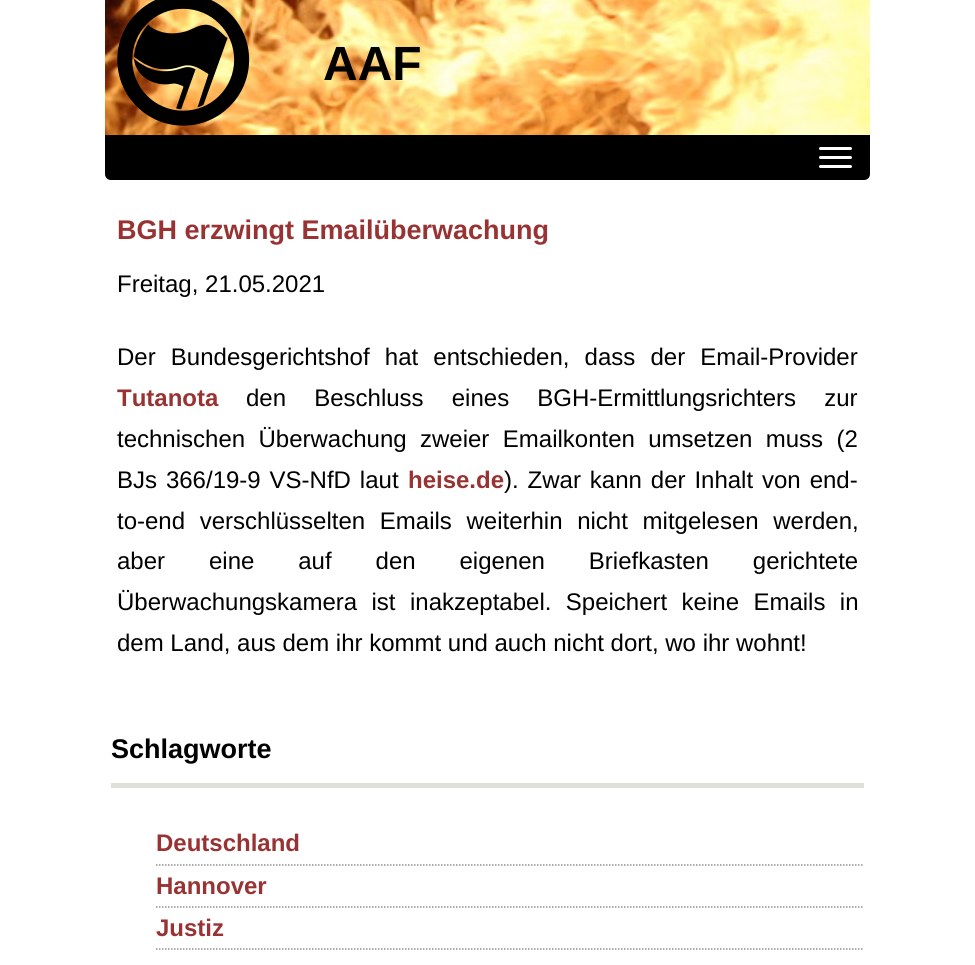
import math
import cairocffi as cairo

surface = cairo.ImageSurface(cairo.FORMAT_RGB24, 975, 965)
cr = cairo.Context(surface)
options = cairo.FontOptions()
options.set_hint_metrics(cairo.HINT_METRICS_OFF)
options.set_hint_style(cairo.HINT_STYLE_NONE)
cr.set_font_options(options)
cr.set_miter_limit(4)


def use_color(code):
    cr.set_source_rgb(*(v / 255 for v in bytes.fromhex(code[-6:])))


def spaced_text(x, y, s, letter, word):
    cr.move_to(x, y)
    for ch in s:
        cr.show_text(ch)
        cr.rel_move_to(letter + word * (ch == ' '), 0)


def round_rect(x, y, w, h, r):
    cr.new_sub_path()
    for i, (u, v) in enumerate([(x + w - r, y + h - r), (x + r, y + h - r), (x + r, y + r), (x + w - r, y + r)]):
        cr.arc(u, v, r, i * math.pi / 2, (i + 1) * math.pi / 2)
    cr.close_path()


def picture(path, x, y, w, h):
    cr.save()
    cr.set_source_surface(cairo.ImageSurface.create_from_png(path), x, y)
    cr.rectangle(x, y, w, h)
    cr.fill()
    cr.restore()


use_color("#ffffff")
cr.paint()
picture("img1.png", 105, 0, 765, 135)
picture("img2.png", 117, 0, 133, 126)
cr.select_font_face("Liberation Sans", cairo.FONT_SLANT_NORMAL, cairo.FONT_WEIGHT_BOLD)
cr.set_font_size(48)
use_color("#000000")
cr.move_to(323, 80)
cr.show_text("AAF")
cr.new_path()
cr.move_to(105, 135)
cr.line_to(870, 135)
cr.line_to(870, 174)
cr.curve_to(870, 177.5, 867.5, 180, 864, 180)
cr.line_to(111, 180)
cr.curve_to(107.5, 180, 105, 177.5, 105, 174)
cr.close_path()
cr.fill()
use_color("#ffffff")
round_rect(819, 147, 33, 3, 1.5)
cr.fill()
round_rect(819, 156, 33, 3, 1.5)
cr.fill()
round_rect(819, 165, 33, 3, 1.5)
cr.fill()
cr.set_font_size(27)
use_color("#993333")
cr.move_to(117, 239)
cr.show_text("BGH erzwingt Emailüberwachung")
cr.select_font_face("Liberation Sans")
cr.set_font_size(24)
use_color("#000000")
cr.move_to(117, 292)
cr.show_text("Freitag, 21.05.2021")
spaced_text(117, 365, "Der Bundesgerichtshof hat entschieden, dass der Email-Provider", 0, 8.5)
cr.select_font_face("Liberation Sans", cairo.FONT_SLANT_NORMAL, cairo.FONT_WEIGHT_BOLD)
use_color("#993333")
cr.move_to(117, 406)
cr.show_text("Tutanota")
cr.select_font_face("Liberation Sans")
use_color("#000000")
spaced_text(246, 406, "den Beschluss eines BGH-Ermittlungsrichters zur", 0, 21.5)
spaced_text(117, 447, "technischen Überwachung zweier Emailkonten umsetzen muss (2", 0, 6.75)
spaced_text(117, 488, "BJs 366/19-9 VS-NfD laut", 0, 2.25)
cr.select_font_face("Liberation Sans", cairo.FONT_SLANT_NORMAL, cairo.FONT_WEIGHT_BOLD)
use_color("#993333")
cr.move_to(408, 488)
cr.show_text("heise.de")
cr.select_font_face("Liberation Sans")
use_color("#000000")
spaced_text(504, 488, "). Zwar kann der Inhalt von end-", 0, 2.25)
spaced_text(117, 529, "to-end verschlüsselten Emails weiterhin nicht mitgelesen werden,", 0, 8)
spaced_text(117, 569, "aber eine auf den eigenen Briefkasten gerichtete", 0, 37.25)
spaced_text(117, 610, "Überwachungskamera ist inakzeptabel. Speichert keine Emails in", 0, 7.75)
cr.move_to(117, 651)
cr.show_text("dem Land, aus dem ihr kommt und auch nicht dort, wo ihr wohnt!")
use_color("#e0e0da")
cr.rectangle(111, 783, 753, 5)
cr.fill()
cr.select_font_face("Liberation Sans", cairo.FONT_SLANT_NORMAL, cairo.FONT_WEIGHT_BOLD)
cr.set_font_size(27)
use_color("#000000")
cr.move_to(111, 758)
cr.show_text("Schlagworte")
cr.new_path()
cr.move_to(156, 865)
cr.line_to(864, 865)
use_color("#909090")
cr.set_line_width(1.5)
cr.set_dash([1.5, 1.5])
cr.stroke()
cr.set_font_size(24)
use_color("#993333")
cr.move_to(156, 851)
cr.show_text("Deutschland")
cr.new_path()
cr.move_to(156, 907)
cr.line_to(864, 907)
use_color("#909090")
cr.stroke()
use_color("#993333")
cr.move_to(156, 894)
cr.show_text("Hannover")
cr.new_path()
cr.move_to(156, 949)
cr.line_to(864, 949)
use_color("#909090")
cr.stroke()
use_color("#993333")
cr.move_to(156, 936)
cr.show_text("Justiz")
surface.write_to_png("result.png")
